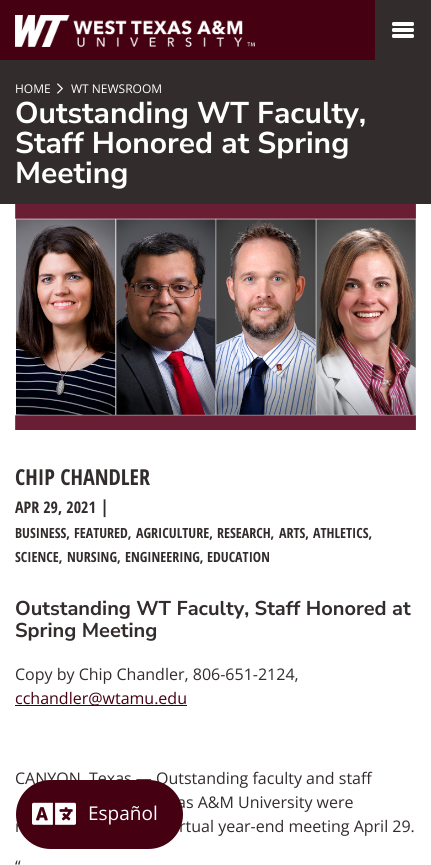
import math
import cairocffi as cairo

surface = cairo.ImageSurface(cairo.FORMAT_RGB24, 431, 865)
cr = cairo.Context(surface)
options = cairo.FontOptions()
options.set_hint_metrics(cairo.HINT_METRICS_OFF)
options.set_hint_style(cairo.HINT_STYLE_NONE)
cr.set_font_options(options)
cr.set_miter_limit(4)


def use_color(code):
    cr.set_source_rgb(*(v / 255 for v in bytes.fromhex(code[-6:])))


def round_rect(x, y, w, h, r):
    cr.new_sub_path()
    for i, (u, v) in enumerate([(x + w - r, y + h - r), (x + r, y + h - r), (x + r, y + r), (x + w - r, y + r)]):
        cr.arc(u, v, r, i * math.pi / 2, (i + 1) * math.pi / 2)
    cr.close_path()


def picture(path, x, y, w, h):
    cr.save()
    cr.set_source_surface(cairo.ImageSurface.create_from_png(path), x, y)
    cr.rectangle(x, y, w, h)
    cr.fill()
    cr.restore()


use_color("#ffffff")
cr.paint()
use_color("#450012")
cr.rectangle(0, 0, 375, 60)
cr.fill()
use_color("#332c2c")
cr.rectangle(375, 0, 56, 60)
cr.fill()
use_color("#ffffff")
round_rect(392, 28, 22, 4, 1.5)
cr.fill()
round_rect(392, 22, 22, 4, 1.5)
cr.fill()
round_rect(392, 34, 22, 4, 1.5)
cr.fill()
picture("img1.png", 15, 15, 240, 32)
use_color("#332c2c")
cr.rectangle(0, 60, 431, 144)
cr.fill()
cr.select_font_face("Open Sans")
cr.set_font_size(12)
use_color("#ffffff")
cr.move_to(15, 93)
cr.show_text("HOME")
picture("img2.png", 57, 83, 6, 11)
cr.move_to(71, 93)
cr.show_text("WT NEWSROOM")
cr.select_font_face("Nunito Sans", cairo.FONT_SLANT_NORMAL, cairo.FONT_WEIGHT_BOLD)
cr.set_font_size(30)
cr.move_to(15, 123)
cr.show_text("Outstanding WT Faculty,")
cr.move_to(15, 153)
cr.show_text("Staff Honored at Spring")
cr.move_to(15, 183)
cr.show_text("Meeting")
picture("img3.png", 15, 204, 401, 226)
cr.select_font_face("Open Sans Condensed", cairo.FONT_SLANT_NORMAL, cairo.FONT_WEIGHT_BOLD)
cr.set_font_size(22)
use_color("#332c2c")
cr.move_to(15, 485)
cr.show_text("CHIP CHANDLER")
cr.set_font_size(16)
cr.move_to(15, 513)
cr.show_text("APR 29, 2021")
cr.set_font_size(18)
cr.move_to(100, 513)
cr.show_text("|")
cr.set_font_size(14)
cr.move_to(15, 538)
cr.show_text("BUSINESS,")
cr.move_to(74, 538)
cr.show_text("FEATURED,")
cr.move_to(136, 538)
cr.show_text("AGRICULTURE,")
cr.move_to(217, 538)
cr.show_text("RESEARCH,")
cr.move_to(279, 538)
cr.show_text("ARTS,")
cr.move_to(313, 538)
cr.show_text("ATHLETICS,")
cr.move_to(15, 562)
cr.show_text("SCIENCE,")
cr.move_to(67, 562)
cr.show_text("NURSING,")
cr.move_to(125, 562)
cr.show_text("ENGINEERING,")
cr.move_to(207, 562)
cr.show_text("EDUCATION")
cr.select_font_face("Nunito Sans", cairo.FONT_SLANT_NORMAL, cairo.FONT_WEIGHT_BOLD)
cr.set_font_size(20)
cr.move_to(15, 615)
cr.show_text("Outstanding WT Faculty, Staff Honored at")
cr.move_to(15, 637)
cr.show_text("Spring Meeting")
cr.select_font_face("Open Sans")
cr.set_font_size(16)
cr.move_to(15, 680)
cr.show_text("Copy by Chip Chandler, 806-651-2124,")
use_color("#450012")
cr.rectangle(15, 705, 172, 1)
cr.fill()
cr.move_to(15, 704)
cr.show_text("cchandler@wtamu.edu")
use_color("#332c2c")
cr.move_to(15, 784)
cr.show_text("CANYON, Texas — Outstanding faculty and staff")
cr.move_to(177, 808)
cr.show_text("as A&M University were")
cr.move_to(15, 832)
cr.show_text("r")
cr.move_to(179, 832)
cr.show_text("rtual year-end meeting April 29.")
cr.move_to(15, 872)
cr.show_text("“")
use_color("#450012")
round_rect(16, 780, 167, 69, 34.5)
cr.fill()
picture("img4.png", 32, 802, 44, 23)
cr.set_font_size(19)
use_color("#ffffff")
cr.move_to(88, 820)
cr.show_text("Español")
surface.write_to_png("result.png")
